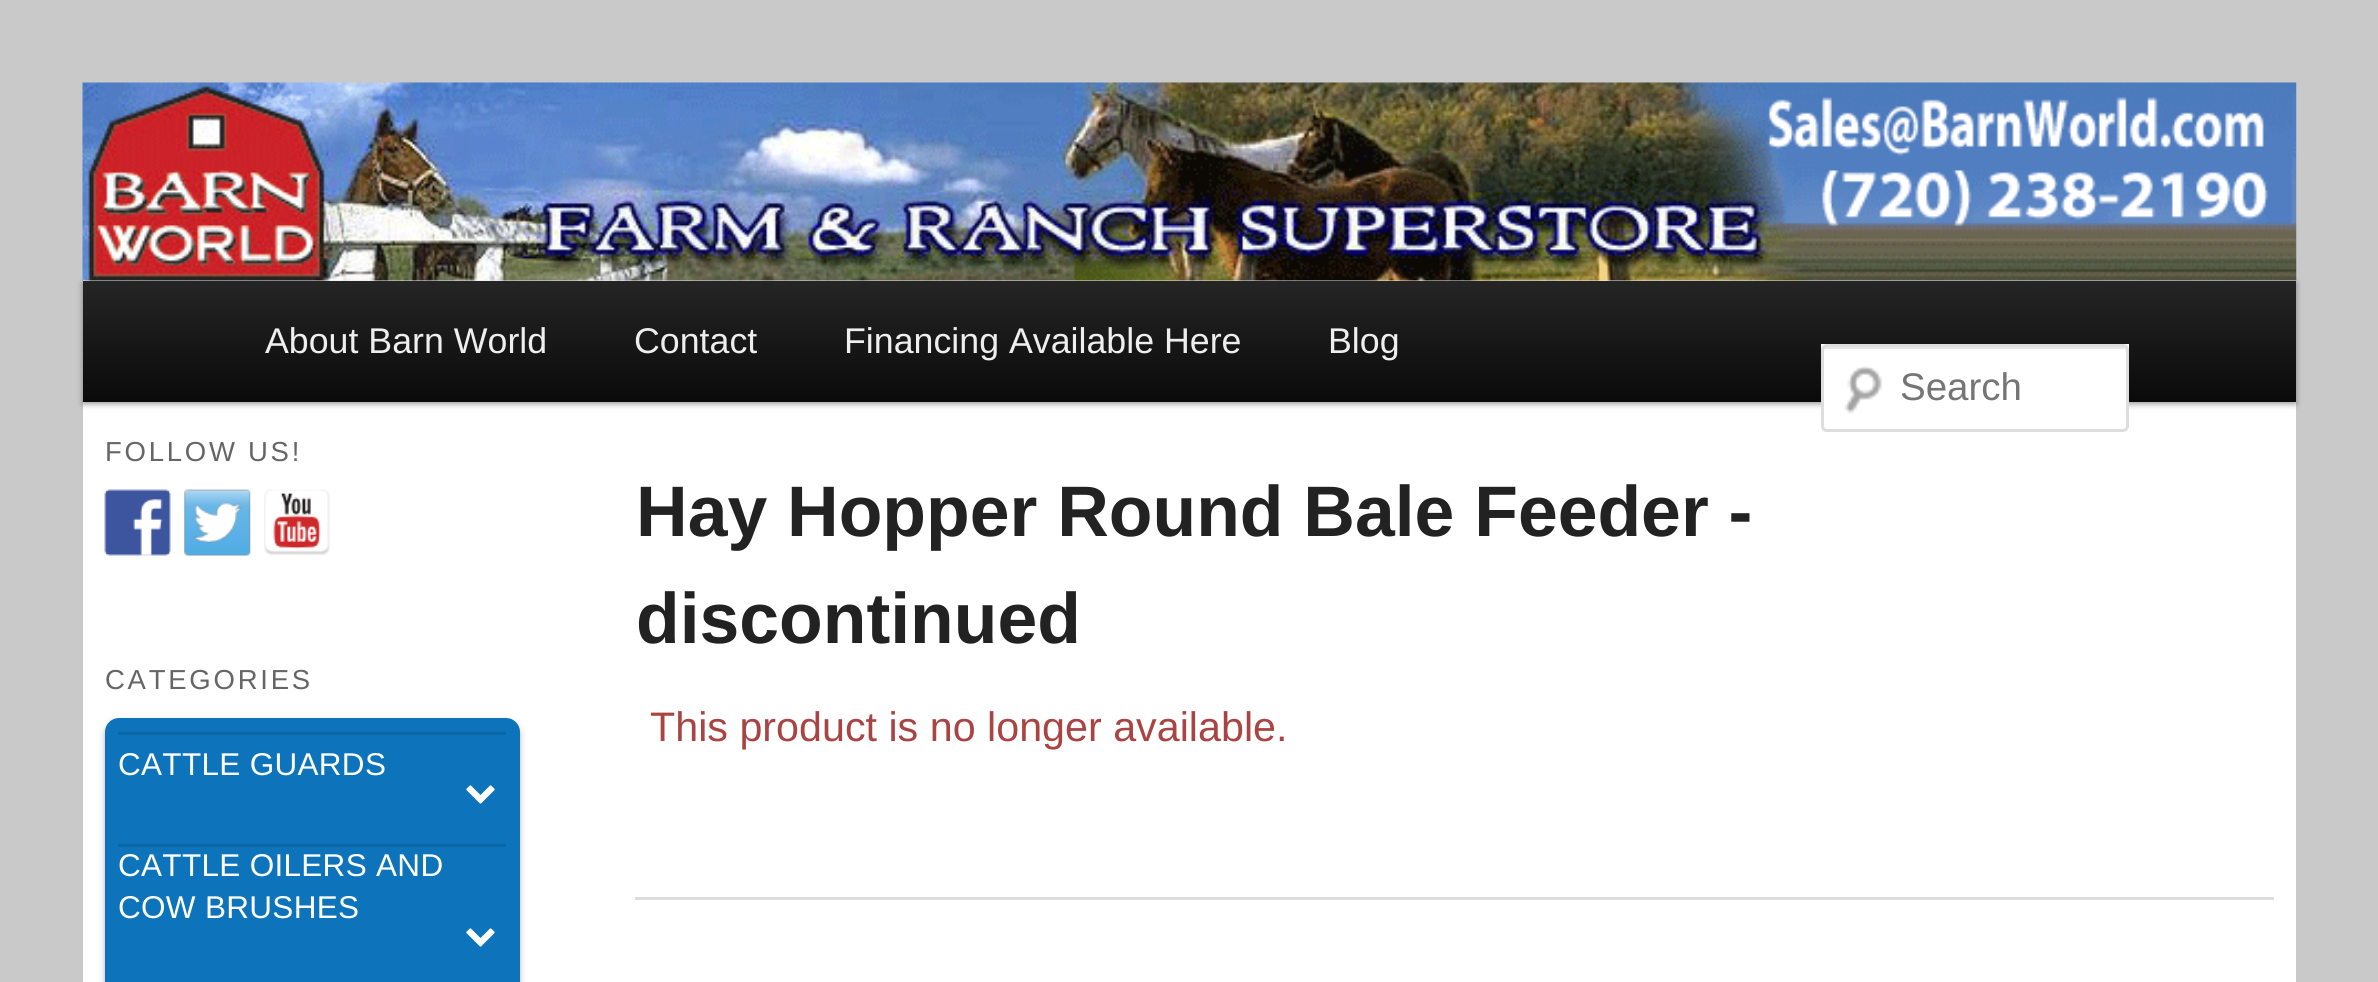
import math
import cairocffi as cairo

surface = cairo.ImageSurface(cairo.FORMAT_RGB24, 2378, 982)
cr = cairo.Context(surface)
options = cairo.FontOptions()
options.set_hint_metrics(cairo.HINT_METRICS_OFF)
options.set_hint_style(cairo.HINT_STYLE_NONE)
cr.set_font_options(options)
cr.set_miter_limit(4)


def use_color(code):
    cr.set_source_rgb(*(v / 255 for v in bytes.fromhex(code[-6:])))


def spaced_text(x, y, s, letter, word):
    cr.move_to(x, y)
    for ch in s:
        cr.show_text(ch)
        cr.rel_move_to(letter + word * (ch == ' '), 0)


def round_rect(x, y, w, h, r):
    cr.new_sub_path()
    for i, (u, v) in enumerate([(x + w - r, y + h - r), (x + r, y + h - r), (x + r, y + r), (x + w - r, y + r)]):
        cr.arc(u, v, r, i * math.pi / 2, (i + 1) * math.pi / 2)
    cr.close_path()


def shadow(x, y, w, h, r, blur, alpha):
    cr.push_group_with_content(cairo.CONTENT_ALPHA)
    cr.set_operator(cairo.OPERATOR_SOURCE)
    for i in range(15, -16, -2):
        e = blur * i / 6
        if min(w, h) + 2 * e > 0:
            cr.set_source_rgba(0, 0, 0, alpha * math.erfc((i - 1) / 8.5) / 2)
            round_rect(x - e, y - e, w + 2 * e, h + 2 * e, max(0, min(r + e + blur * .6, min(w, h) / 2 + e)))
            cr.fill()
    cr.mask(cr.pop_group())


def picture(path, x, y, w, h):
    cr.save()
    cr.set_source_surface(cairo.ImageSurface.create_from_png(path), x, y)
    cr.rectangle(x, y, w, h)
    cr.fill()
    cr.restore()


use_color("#c9c9c9")
cr.paint()
use_color("#ffffff")
cr.rectangle(83, 280, 2213, 702)
cr.fill()
use_color("#000000")
shadow(83, 283, 2213, 121, 0, 3, 0.4)
picture("img1.png", 82, 82, 2215, 199)
gradient = cairo.LinearGradient(1189, 280, 1189, 402)
gradient.add_color_stop_rgba(0, 0.145, 0.145, 0.145, 1)
gradient.add_color_stop_rgba(1, 0.039, 0.039, 0.039, 1)
cr.set_source(gradient)
cr.rectangle(83, 281, 2213, 121)
cr.fill()
cr.select_font_face("Liberation Sans")
cr.set_font_size(35.75)
use_color("#eeeeee")
cr.move_to(265, 353)
cr.show_text("About Barn World")
cr.move_to(634, 353)
cr.show_text("Contact")
cr.move_to(844, 353)
cr.show_text("Financing Available Here")
cr.move_to(1328, 353)
cr.show_text("Blog")
use_color("#ffffff")
cr.rectangle(1821, 344, 308, 66)
cr.fill()
picture("img2.png", 1844, 366, 38, 48)
use_color("#e6e6e6")
cr.new_path()
cr.move_to(1826, 349)
cr.line_to(2123, 349)
cr.curve_to(2125, 349, 2126, 350, 2126, 352)
cr.curve_to(2126, 350, 2126, 347, 2123, 347)
cr.line_to(1826, 347)
cr.curve_to(1823, 347, 1823, 350, 1823, 352)
cr.curve_to(1823, 350, 1824, 349, 1826, 349)
cr.close_path()
cr.fill()
round_rect(1822.5, 345.5, 305, 85, 4.5)
use_color("#dddddd")
cr.set_line_width(3)
cr.stroke()
cr.set_font_size(38.5)
use_color("#757575")
cr.move_to(1900, 400)
cr.show_text("Search")
cr.set_font_size(27.5)
use_color("#666666")
spaced_text(105, 461, "FOLLOW US!", 2.75, 0)
picture("img3.png", 104, 489, 67, 67)
picture("img4.png", 184, 489, 67, 67)
picture("img5.png", 264, 489, 66, 67)
spaced_text(105, 689, "CATEGORIES", 2.75, 0)
use_color("#000000")
shadow(105, 721, 415, 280, 14, 1.5, 0.14)
shadow(105, 721, 415, 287, 14, 4, 0.2)
use_color("#0d74bc")
round_rect(105, 718, 415, 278, 14)
cr.fill()
use_color("#0b66a5")
cr.rectangle(118, 732, 388, 3)
cr.fill()
cr.set_font_size(31.5)
use_color("#ffffff")
spaced_text(118, 775, "CATTLE GUARDS", 0.3, 0)
picture("img6.png", 466, 785, 29, 19)
use_color("#0b66a5")
cr.rectangle(118, 844, 388, 3)
cr.fill()
use_color("#ffffff")
spaced_text(118, 876, "CATTLE OILERS AND", 0.3, 0)
spaced_text(118, 918, "COW BRUSHES", 0.3, 0)
picture("img6.png", 466, 928, 29, 19)
use_color("#dddddd")
cr.rectangle(635, 897, 1639, 3)
cr.fill()
cr.select_font_face("Liberation Sans", cairo.FONT_SLANT_NORMAL, cairo.FONT_WEIGHT_BOLD)
cr.set_font_size(71.5)
use_color("#222222")
cr.move_to(636, 536)
cr.show_text("Hay Hopper Round Bale Feeder -")
cr.move_to(636, 643)
cr.show_text("discontinued")
cr.select_font_face("Liberation Sans")
cr.set_font_size(41.25)
use_color("#a94442")
cr.move_to(650, 741)
cr.show_text("This product is no longer available.")
surface.write_to_png("result.png")
